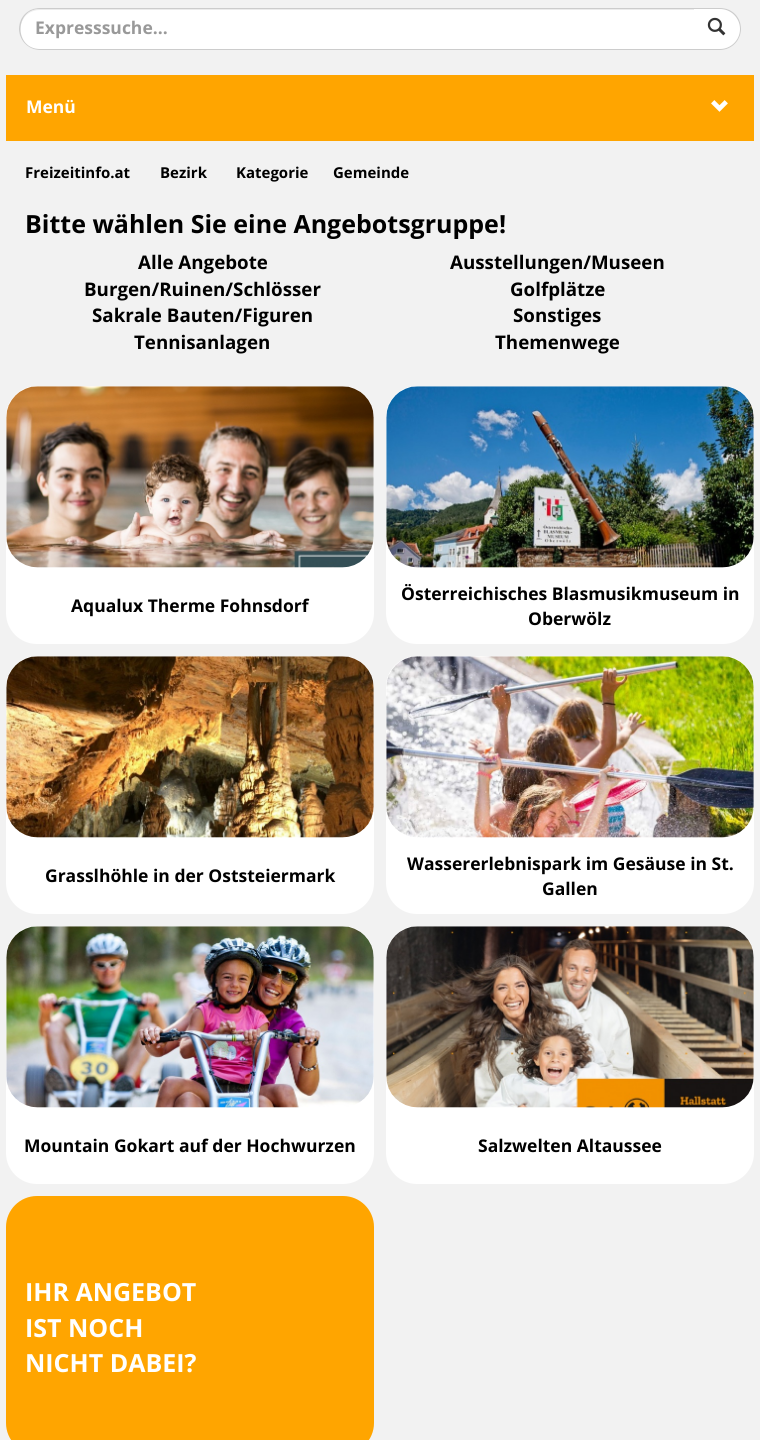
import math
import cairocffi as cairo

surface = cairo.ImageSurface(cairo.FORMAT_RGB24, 760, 1440)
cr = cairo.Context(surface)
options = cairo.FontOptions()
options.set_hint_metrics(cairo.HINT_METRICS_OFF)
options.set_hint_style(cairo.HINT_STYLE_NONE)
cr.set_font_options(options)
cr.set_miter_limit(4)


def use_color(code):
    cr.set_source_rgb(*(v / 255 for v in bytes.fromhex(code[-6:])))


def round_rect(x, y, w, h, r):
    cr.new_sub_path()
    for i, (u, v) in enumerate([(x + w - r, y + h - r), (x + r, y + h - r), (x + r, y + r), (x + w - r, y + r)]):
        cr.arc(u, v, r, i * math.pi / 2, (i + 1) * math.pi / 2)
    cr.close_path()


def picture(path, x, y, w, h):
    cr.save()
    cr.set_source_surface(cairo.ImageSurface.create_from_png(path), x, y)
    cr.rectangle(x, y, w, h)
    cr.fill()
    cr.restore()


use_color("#f2f2f2")
cr.paint()
use_color("#ffffff")
cr.new_path()
cr.move_to(693, 8)
cr.line_to(720, 8)
cr.curve_to(731.5, 8, 741, 17.5, 741, 29)
cr.curve_to(741, 40.5, 731.5, 50, 720, 50)
cr.line_to(693, 50)
cr.close_path()
cr.fill()
use_color("#cccccc")
cr.set_fill_rule(cairo.FILL_RULE_EVEN_ODD)
cr.new_path()
cr.move_to(692, 8)
cr.line_to(720, 8)
cr.curve_to(732, 8, 741, 17, 741, 29)
cr.curve_to(741, 40, 732, 50, 720, 50)
cr.line_to(692, 50)
cr.close_path()
cr.move_to(692, 9)
cr.line_to(720, 9)
cr.curve_to(731, 9, 740, 18, 740, 29)
cr.curve_to(740, 40, 731, 49, 720, 49)
cr.line_to(692, 49)
cr.close_path()
cr.fill()
use_color("#ffffff")
cr.new_path()
cr.move_to(40, 8)
cr.line_to(694, 8)
cr.line_to(694, 50)
cr.line_to(40, 50)
cr.curve_to(28.5, 50, 19, 40.5, 19, 29)
cr.curve_to(19, 17.5, 28.5, 8, 40, 8)
cr.close_path()
cr.fill()
use_color("#ececec")
cr.set_fill_rule(cairo.FILL_RULE_WINDING)
cr.new_path()
cr.move_to(40, 10)
cr.line_to(694, 10)
cr.line_to(694, 9)
cr.line_to(40, 9)
cr.curve_to(29, 9, 20, 18, 20, 29)
cr.curve_to(20, 32, 21, 34, 21, 36)
cr.curve_to(18, 25, 24, 10, 40, 10)
cr.close_path()
cr.fill()
use_color("#cccccc")
cr.set_fill_rule(cairo.FILL_RULE_EVEN_ODD)
cr.new_path()
cr.move_to(40, 8)
cr.line_to(694, 8)
cr.line_to(694, 50)
cr.line_to(40, 50)
cr.curve_to(28, 50, 19, 40, 19, 29)
cr.curve_to(19, 17, 28, 8, 40, 8)
cr.close_path()
cr.move_to(40, 9)
cr.line_to(694, 9)
cr.line_to(694, 49)
cr.line_to(40, 49)
cr.curve_to(14, 49, 14, 9, 40, 9)
cr.close_path()
cr.fill()
cr.select_font_face("Open Sans", cairo.FONT_SLANT_NORMAL, cairo.FONT_WEIGHT_BOLD)
cr.set_font_size(17.5)
use_color("#999999")
cr.move_to(35, 34)
cr.show_text("Expresssuche...")
picture("img1.png", 707, 17, 19, 19)
use_color("#ffa500")
cr.rectangle(6, 75, 748, 66)
cr.fill()
use_color("#ffffff")
cr.move_to(26, 113)
cr.show_text("Menü")
picture("img2.png", 711, 100, 17, 12)
cr.set_font_size(15)
use_color("#000000")
cr.move_to(25, 178)
cr.show_text("Freizeitinfo.at")
cr.move_to(160, 178)
cr.show_text("Bezirk")
cr.move_to(236, 178)
cr.show_text("Kategorie")
cr.move_to(333, 178)
cr.show_text("Gemeinde")
cr.set_font_size(25)
cr.move_to(25, 233)
cr.show_text("Bitte wählen Sie eine Angebotsgruppe!")
cr.set_font_size(18.75)
cr.move_to(138, 269)
cr.show_text("Alle Angebote")
cr.move_to(450, 269)
cr.show_text("Ausstellungen/Museen")
cr.move_to(84, 296)
cr.show_text("Burgen/Ruinen/Schlösser")
cr.move_to(510, 296)
cr.show_text("Golfplätze")
cr.move_to(92, 322)
cr.show_text("Sakrale Bauten/Figuren")
cr.move_to(513, 322)
cr.show_text("Sonstiges")
cr.move_to(134, 349)
cr.show_text("Tennisanlagen")
cr.move_to(495, 349)
cr.show_text("Themenwege")
use_color("#ffffff")
round_rect(6, 386, 368, 258, 31)
cr.fill()
picture("img3.png", 6, 386, 368, 182)
cr.set_font_size(17.5)
use_color("#000000")
cr.move_to(71, 612)
cr.show_text("Aqualux Therme Fohnsdorf")
use_color("#ffffff")
round_rect(386, 386, 368, 258, 31)
cr.fill()
picture("img4.png", 386, 386, 368, 182)
use_color("#000000")
cr.move_to(401, 600)
cr.show_text("Österreichisches Blasmusikmuseum in")
cr.move_to(528, 625)
cr.show_text("Oberwölz")
use_color("#ffffff")
round_rect(6, 656, 368, 258, 31)
cr.fill()
picture("img5.png", 6, 656, 368, 182)
use_color("#000000")
cr.move_to(45, 882)
cr.show_text("Grasslhöhle in der Oststeiermark")
use_color("#ffffff")
round_rect(386, 656, 368, 258, 31)
cr.fill()
picture("img6.png", 386, 656, 368, 182)
use_color("#000000")
cr.move_to(407, 870)
cr.show_text("Wassererlebnispark im Gesäuse in St.")
cr.move_to(542, 895)
cr.show_text("Gallen")
use_color("#ffffff")
round_rect(6, 926, 368, 258, 31)
cr.fill()
picture("img7.png", 6, 926, 368, 182)
use_color("#000000")
cr.move_to(24, 1152)
cr.show_text("Mountain Gokart auf der Hochwurzen")
use_color("#ffffff")
round_rect(386, 926, 368, 258, 31)
cr.fill()
picture("img8.png", 386, 926, 368, 182)
use_color("#000000")
cr.move_to(478, 1152)
cr.show_text("Salzwelten Altaussee")
use_color("#ffa500")
round_rect(6, 1196, 368, 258, 31)
cr.fill()
cr.set_font_size(25)
use_color("#ffffff")
cr.move_to(25, 1301)
cr.show_text("IHR ANGEBOT")
cr.move_to(25, 1337)
cr.show_text("IST NOCH")
cr.move_to(25, 1372)
cr.show_text("NICHT DABEI?")
surface.write_to_png("result.png")
